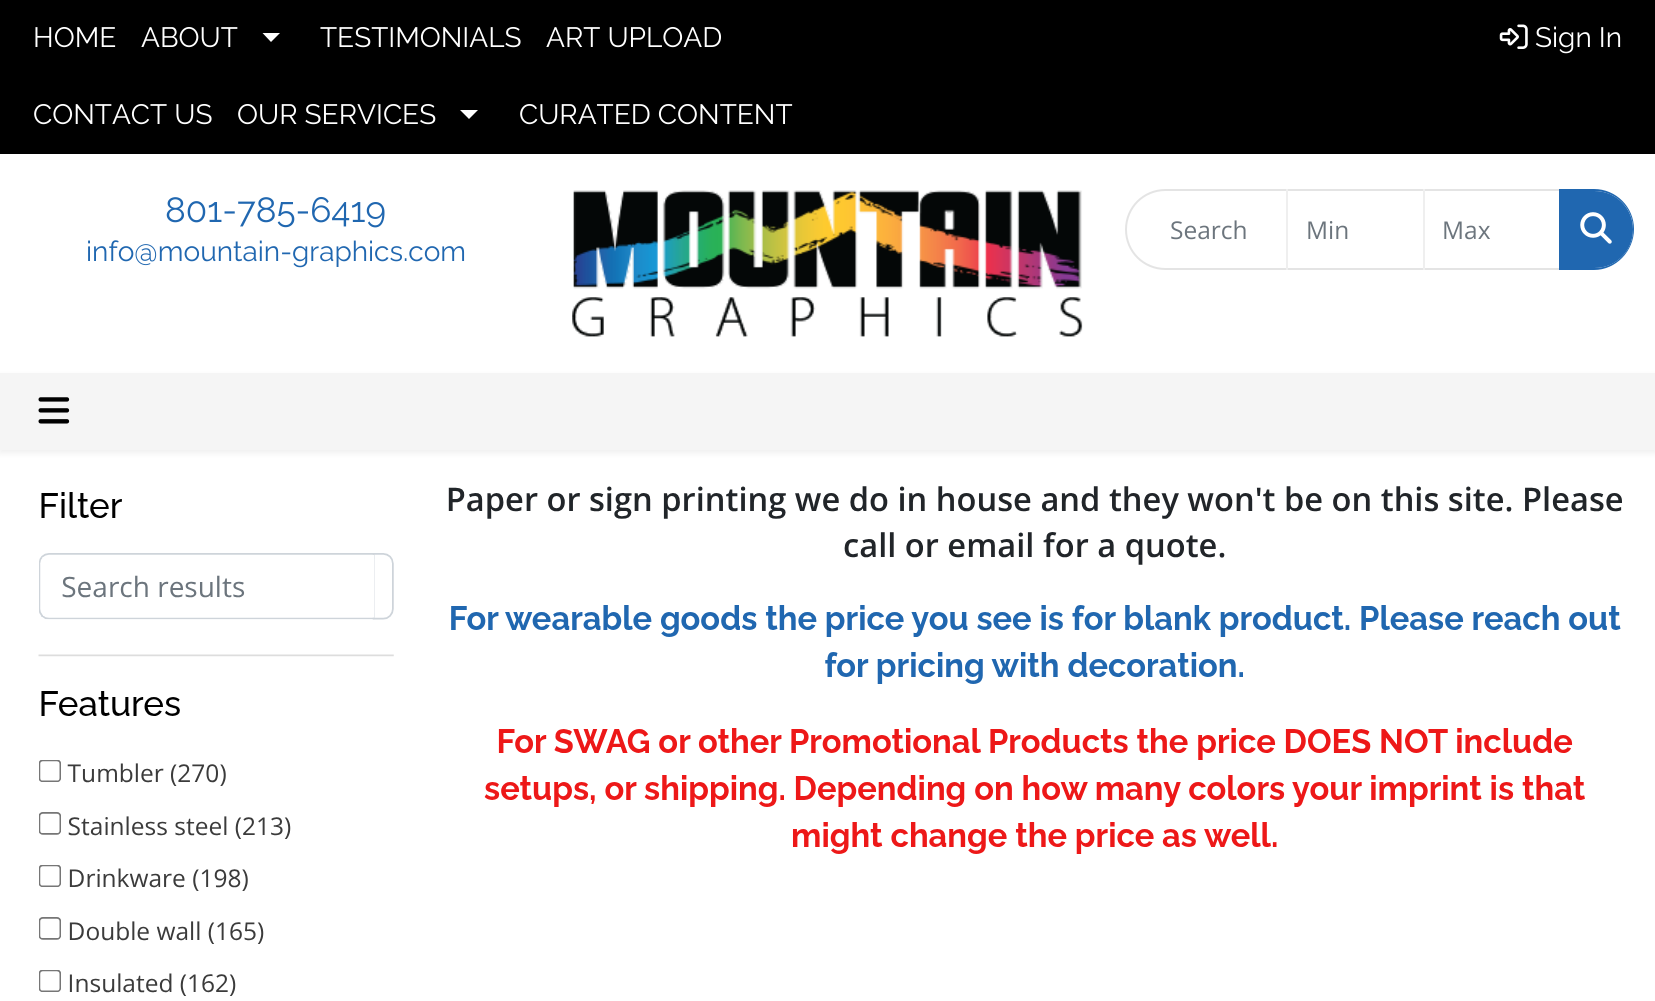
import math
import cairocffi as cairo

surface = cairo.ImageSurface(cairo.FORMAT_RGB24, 1655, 1001)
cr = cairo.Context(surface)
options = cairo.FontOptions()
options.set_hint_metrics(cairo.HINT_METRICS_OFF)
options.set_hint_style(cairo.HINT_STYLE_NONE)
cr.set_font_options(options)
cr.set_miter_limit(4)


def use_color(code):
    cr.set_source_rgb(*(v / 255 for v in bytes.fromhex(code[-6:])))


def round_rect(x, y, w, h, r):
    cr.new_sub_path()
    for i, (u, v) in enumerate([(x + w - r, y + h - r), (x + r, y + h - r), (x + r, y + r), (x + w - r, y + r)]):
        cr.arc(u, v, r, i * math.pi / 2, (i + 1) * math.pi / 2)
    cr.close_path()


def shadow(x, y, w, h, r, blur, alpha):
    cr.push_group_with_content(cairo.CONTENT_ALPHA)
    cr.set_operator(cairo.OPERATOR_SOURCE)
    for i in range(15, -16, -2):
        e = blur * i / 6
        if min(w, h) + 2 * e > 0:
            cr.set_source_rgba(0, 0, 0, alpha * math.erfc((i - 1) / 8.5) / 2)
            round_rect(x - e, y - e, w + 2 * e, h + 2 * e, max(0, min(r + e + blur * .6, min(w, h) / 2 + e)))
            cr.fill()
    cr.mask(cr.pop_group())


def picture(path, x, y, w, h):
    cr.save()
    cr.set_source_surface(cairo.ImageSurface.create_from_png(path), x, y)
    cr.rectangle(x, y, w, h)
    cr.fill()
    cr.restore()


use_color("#ffffff")
cr.paint()
use_color("#000000")
cr.rectangle(0, 0, 1655, 154)
cr.fill()
cr.select_font_face("Raleway")
cr.set_font_size(28)
use_color("#ffffff")
cr.move_to(33, 47)
cr.show_text("HOME")
cr.move_to(141, 47)
cr.show_text("ABOUT")
cr.new_path()
cr.move_to(262.5, 33)
cr.line_to(280, 33)
cr.line_to(271, 42)
cr.close_path()
cr.fill()
cr.move_to(320, 47)
cr.show_text("TESTIMONIALS")
cr.move_to(546, 47)
cr.show_text("ART UPLOAD")
cr.move_to(33, 124)
cr.show_text("CONTACT US")
cr.move_to(237, 124)
cr.show_text("OUR SERVICES")
cr.new_path()
cr.move_to(460, 110)
cr.line_to(478, 110)
cr.line_to(469, 119)
cr.close_path()
cr.fill()
cr.move_to(519, 124)
cr.show_text("CURATED CONTENT")
picture("img1.png", 1499, 24, 29, 25)
cr.move_to(1535, 47)
cr.show_text("Sign In")
cr.set_font_size(35)
use_color("#2067b0")
cr.move_to(165, 222)
cr.show_text("801-785-6419")
cr.set_font_size(28)
cr.move_to(86, 261)
cr.show_text("info@mountain-graphics.com")
picture("img2.png", 572, 190, 511, 147)
cr.new_path()
cr.move_to(1165.5, 190)
cr.line_to(1287, 190)
cr.line_to(1287, 269)
cr.line_to(1165.5, 269)
cr.curve_to(1143.5, 269, 1126, 251.5, 1126, 229.5)
cr.curve_to(1126, 207.5, 1143.5, 190, 1165.5, 190)
cr.close_path()
use_color("#e4e4e4")
cr.stroke()
cr.select_font_face("Open Sans")
cr.set_font_size(24.5)
use_color("#6c757d")
cr.move_to(1170, 239)
cr.show_text("Search")
use_color("#e4e4e4")
cr.rectangle(1286, 189, 275, 2)
cr.fill()
cr.rectangle(1286, 268, 275, 2)
cr.fill()
use_color("#efefef")
cr.rectangle(1286, 189, 2, 81)
cr.fill()
use_color("#6c757d")
cr.move_to(1306, 239)
cr.show_text("Min")
use_color("#efefef")
cr.rectangle(1423, 189, 2, 81)
cr.fill()
use_color("#6c757d")
cr.move_to(1442, 239)
cr.show_text("Max")
use_color("#2067b0")
cr.new_path()
cr.move_to(1559, 191)
cr.line_to(1594.5, 191)
cr.curve_to(1616, 191, 1633, 208, 1633, 229.5)
cr.curve_to(1633, 251, 1616, 268, 1594.5, 268)
cr.line_to(1559, 268)
cr.close_path()
cr.fill()
cr.set_fill_rule(cairo.FILL_RULE_EVEN_ODD)
cr.new_path()
cr.move_to(1559, 189)
cr.line_to(1594, 189)
cr.curve_to(1616, 189, 1634, 207, 1634, 229)
cr.curve_to(1634, 251, 1616, 270, 1594, 270)
cr.line_to(1559, 270)
cr.close_path()
cr.move_to(1559, 191)
cr.line_to(1594, 191)
cr.curve_to(1616, 191, 1633, 208, 1633, 229)
cr.curve_to(1633, 251, 1616, 268, 1594, 268)
cr.line_to(1559, 268)
cr.close_path()
cr.fill()
picture("img3.png", 1580, 212, 32, 32)
use_color("#000000")
shadow(0, 376, 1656, 77, 0, 3.5, 0.07)
use_color("#f5f5f5")
cr.rectangle(0, 373, 1655, 77)
cr.fill()
picture("img4.png", 38, 397, 32, 27)
picture("img5.png", 38, 486, 1584, 510)
surface.write_to_png("result.png")
